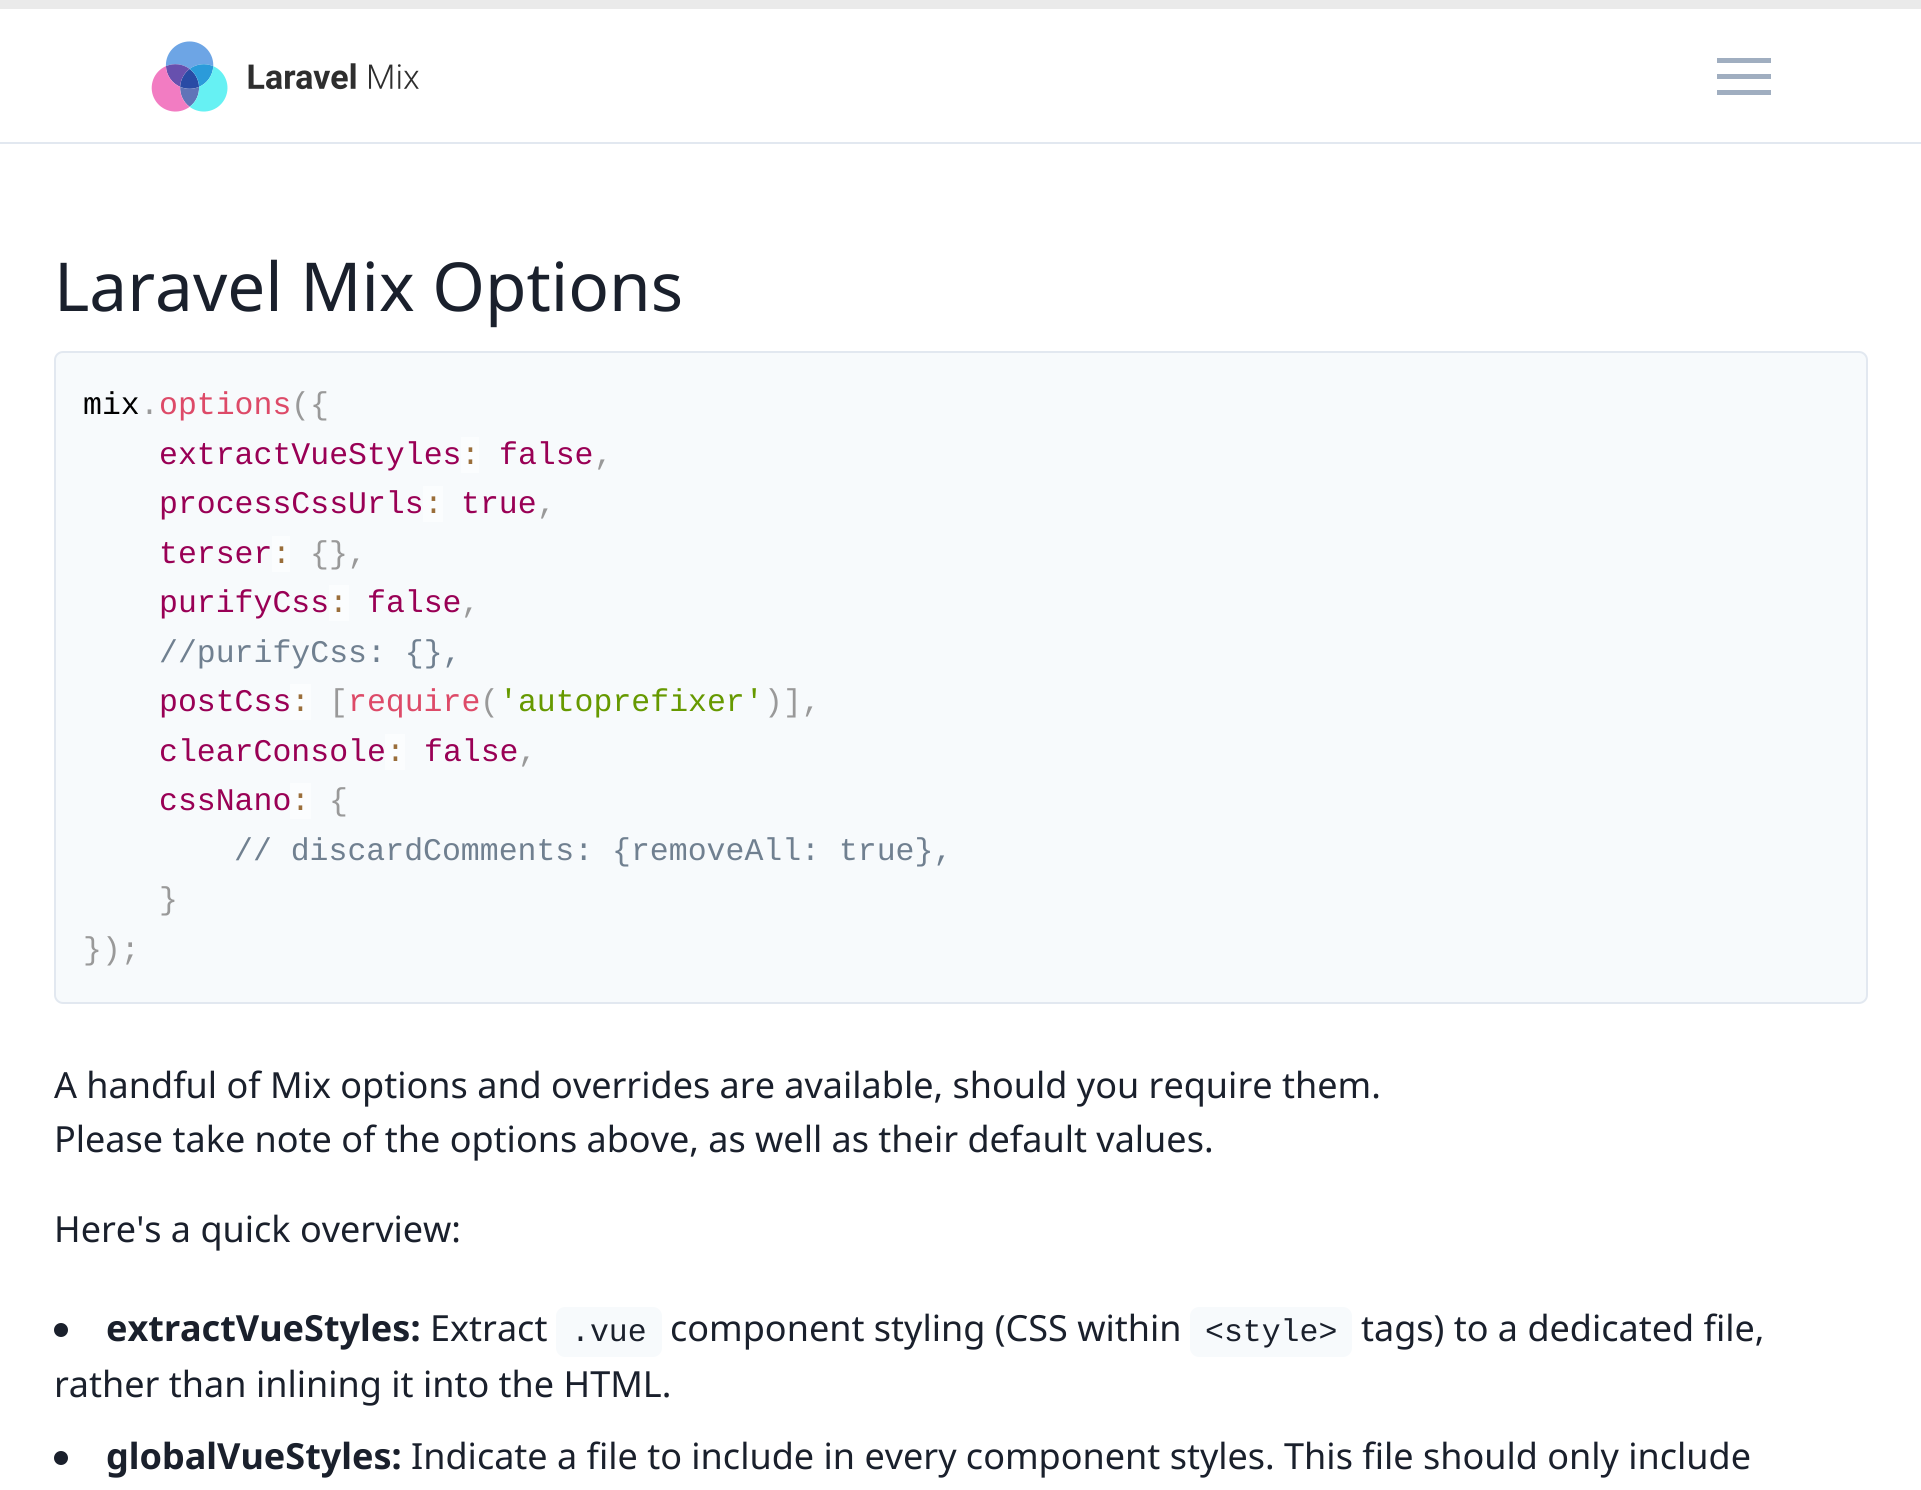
import math
import cairocffi as cairo

surface = cairo.ImageSurface(cairo.FORMAT_RGB24, 1921, 1490)
cr = cairo.Context(surface)
options = cairo.FontOptions()
options.set_hint_metrics(cairo.HINT_METRICS_OFF)
options.set_hint_style(cairo.HINT_STYLE_NONE)
cr.set_font_options(options)
cr.set_miter_limit(4)


def use_color(code):
    cr.set_source_rgb(*(v / 255 for v in bytes.fromhex(code[-6:])))


def round_rect(x, y, w, h, r):
    cr.new_sub_path()
    for i, (u, v) in enumerate([(x + w - r, y + h - r), (x + r, y + h - r), (x + r, y + r), (x + w - r, y + r)]):
        cr.arc(u, v, r, i * math.pi / 2, (i + 1) * math.pi / 2)
    cr.close_path()


def picture(path, x, y, w, h):
    cr.save()
    cr.set_source_surface(cairo.ImageSurface.create_from_png(path), x, y)
    cr.rectangle(x, y, w, h)
    cr.fill()
    cr.restore()


use_color("#ffffff")
cr.paint()
use_color("#eaeaea")
cr.rectangle(0, 0, 1921, 9)
cr.fill()
use_color("#e2e8f0")
cr.rectangle(0, 142, 1921, 2)
cr.fill()
picture("img1.png", 151, 41, 268, 71)
use_color("#a0aec0")
cr.new_path()
cr.move_to(1717, 58)
cr.line_to(1771, 58)
cr.line_to(1771, 63)
cr.line_to(1717, 63)
cr.close_path()
cr.move_to(1717, 74)
cr.line_to(1771, 74)
cr.line_to(1771, 79)
cr.line_to(1717, 79)
cr.close_path()
cr.move_to(1717, 90)
cr.line_to(1771, 90)
cr.line_to(1771, 95)
cr.line_to(1717, 95)
cr.close_path()
cr.fill()
cr.select_font_face("Noto Sans")
cr.set_font_size(67.5)
use_color("#1a202c")
cr.move_to(54, 311)
cr.show_text("Laravel Mix Options")
use_color("#f7fafc")
round_rect(55, 352, 1812, 651, 8)
cr.fill_preserve()
use_color("#e2e8f0")
cr.stroke()
cr.select_font_face("Liberation Mono")
cr.set_font_size(31.5)
use_color("#000000")
cr.move_to(83, 414)
cr.show_text("mix")
use_color("#999999")
cr.move_to(140, 414)
cr.show_text(".")
use_color("#dd4a68")
cr.move_to(159, 414)
cr.show_text("options")
use_color("#999999")
cr.move_to(291, 414)
cr.show_text("({")
use_color("#990055")
cr.move_to(159, 464)
cr.show_text("extractVueStyles")
use_color("#fbfdfe")
cr.rectangle(461, 437, 18, 36)
cr.fill()
use_color("#9a6e3a")
cr.move_to(461, 464)
cr.show_text(":")
use_color("#990055")
cr.move_to(499, 464)
cr.show_text("false")
use_color("#999999")
cr.move_to(594, 464)
cr.show_text(",")
use_color("#990055")
cr.move_to(159, 513)
cr.show_text("processCssUrls")
use_color("#fbfdfe")
cr.rectangle(423, 486, 20, 36)
cr.fill()
use_color("#9a6e3a")
cr.move_to(424, 513)
cr.show_text(":")
use_color("#990055")
cr.move_to(461, 513)
cr.show_text("true")
use_color("#999999")
cr.move_to(537, 513)
cr.show_text(",")
use_color("#990055")
cr.move_to(159, 563)
cr.show_text("terser")
use_color("#fbfdfe")
cr.rectangle(272, 536, 18, 36)
cr.fill()
use_color("#9a6e3a")
cr.move_to(272, 563)
cr.show_text(":")
use_color("#999999")
cr.move_to(310, 563)
cr.show_text("{},")
use_color("#990055")
cr.move_to(159, 612)
cr.show_text("purifyCss")
use_color("#fbfdfe")
cr.rectangle(329, 585, 20, 36)
cr.fill()
use_color("#9a6e3a")
cr.move_to(329, 612)
cr.show_text(":")
use_color("#990055")
cr.move_to(367, 612)
cr.show_text("false")
use_color("#999999")
cr.move_to(461, 612)
cr.show_text(",")
use_color("#708090")
cr.move_to(159, 662)
cr.show_text("//purifyCss: {},")
use_color("#990055")
cr.move_to(159, 711)
cr.show_text("postCss")
use_color("#fbfdfe")
cr.rectangle(290, 684, 21, 36)
cr.fill()
use_color("#9a6e3a")
cr.move_to(291, 711)
cr.show_text(":")
use_color("#999999")
cr.move_to(329, 711)
cr.show_text("[")
use_color("#dd4a68")
cr.move_to(348, 711)
cr.show_text("require")
use_color("#999999")
cr.move_to(480, 711)
cr.show_text("(")
use_color("#669900")
cr.move_to(499, 711)
cr.show_text("'autoprefixer'")
use_color("#999999")
cr.move_to(764, 711)
cr.show_text(")],")
use_color("#990055")
cr.move_to(159, 761)
cr.show_text("clearConsole")
use_color("#fbfdfe")
cr.rectangle(385, 734, 20, 36)
cr.fill()
use_color("#9a6e3a")
cr.move_to(386, 761)
cr.show_text(":")
use_color("#990055")
cr.move_to(424, 761)
cr.show_text("false")
use_color("#999999")
cr.move_to(518, 761)
cr.show_text(",")
use_color("#990055")
cr.move_to(159, 810)
cr.show_text("cssNano")
use_color("#fbfdfe")
cr.rectangle(290, 783, 21, 36)
cr.fill()
use_color("#9a6e3a")
cr.move_to(291, 810)
cr.show_text(":")
use_color("#999999")
cr.move_to(329, 810)
cr.show_text("{")
use_color("#708090")
cr.move_to(234, 860)
cr.show_text("// discardComments: {removeAll: true},")
use_color("#999999")
cr.move_to(159, 909)
cr.show_text("}")
cr.move_to(83, 959)
cr.show_text("});")
cr.select_font_face("Noto Sans")
cr.set_font_size(36)
use_color("#1a202c")
cr.move_to(54, 1098)
cr.show_text("A handful of Mix options and overrides are available, should you require them.")
cr.move_to(54, 1152)
cr.show_text("Please take note of the options above, as well as their default values.")
cr.move_to(54, 1242)
cr.show_text("Here's a quick overview:")
cr.new_path()
cr.arc(61, 1330, 7, 0, 2 * math.pi)
cr.fill()
cr.select_font_face("Noto Sans", cairo.FONT_SLANT_NORMAL, cairo.FONT_WEIGHT_BOLD)
cr.move_to(106, 1341)
cr.show_text("extractVueStyles:")
cr.select_font_face("Noto Sans")
cr.move_to(430, 1341)
cr.show_text("Extract")
use_color("#f7fafc")
round_rect(556, 1307, 106, 50, 9)
cr.fill()
cr.select_font_face("Liberation Mono")
cr.set_font_size(31.5)
use_color("#1a202c")
cr.move_to(571, 1341)
cr.show_text(".vue")
cr.select_font_face("Noto Sans")
cr.set_font_size(36)
cr.move_to(670, 1341)
cr.show_text("component styling (CSS within")
use_color("#f7fafc")
round_rect(1190, 1307, 162, 50, 9)
cr.fill()
cr.select_font_face("Liberation Mono")
cr.set_font_size(31.5)
use_color("#1a202c")
cr.move_to(1205, 1341)
cr.show_text("<style>")
cr.select_font_face("Noto Sans")
cr.set_font_size(36)
cr.move_to(1361, 1341)
cr.show_text("tags) to a dedicated file,")
cr.move_to(54, 1397)
cr.show_text("rather than inlining it into the HTML.")
cr.new_path()
cr.arc(61, 1458, 7, 0, 2 * math.pi)
cr.fill()
cr.select_font_face("Noto Sans", cairo.FONT_SLANT_NORMAL, cairo.FONT_WEIGHT_BOLD)
cr.move_to(106, 1469)
cr.show_text("globalVueStyles:")
cr.select_font_face("Noto Sans")
cr.move_to(411, 1469)
cr.show_text("Indicate a file to include in every component styles. This file should only include")
surface.write_to_png("result.png")
